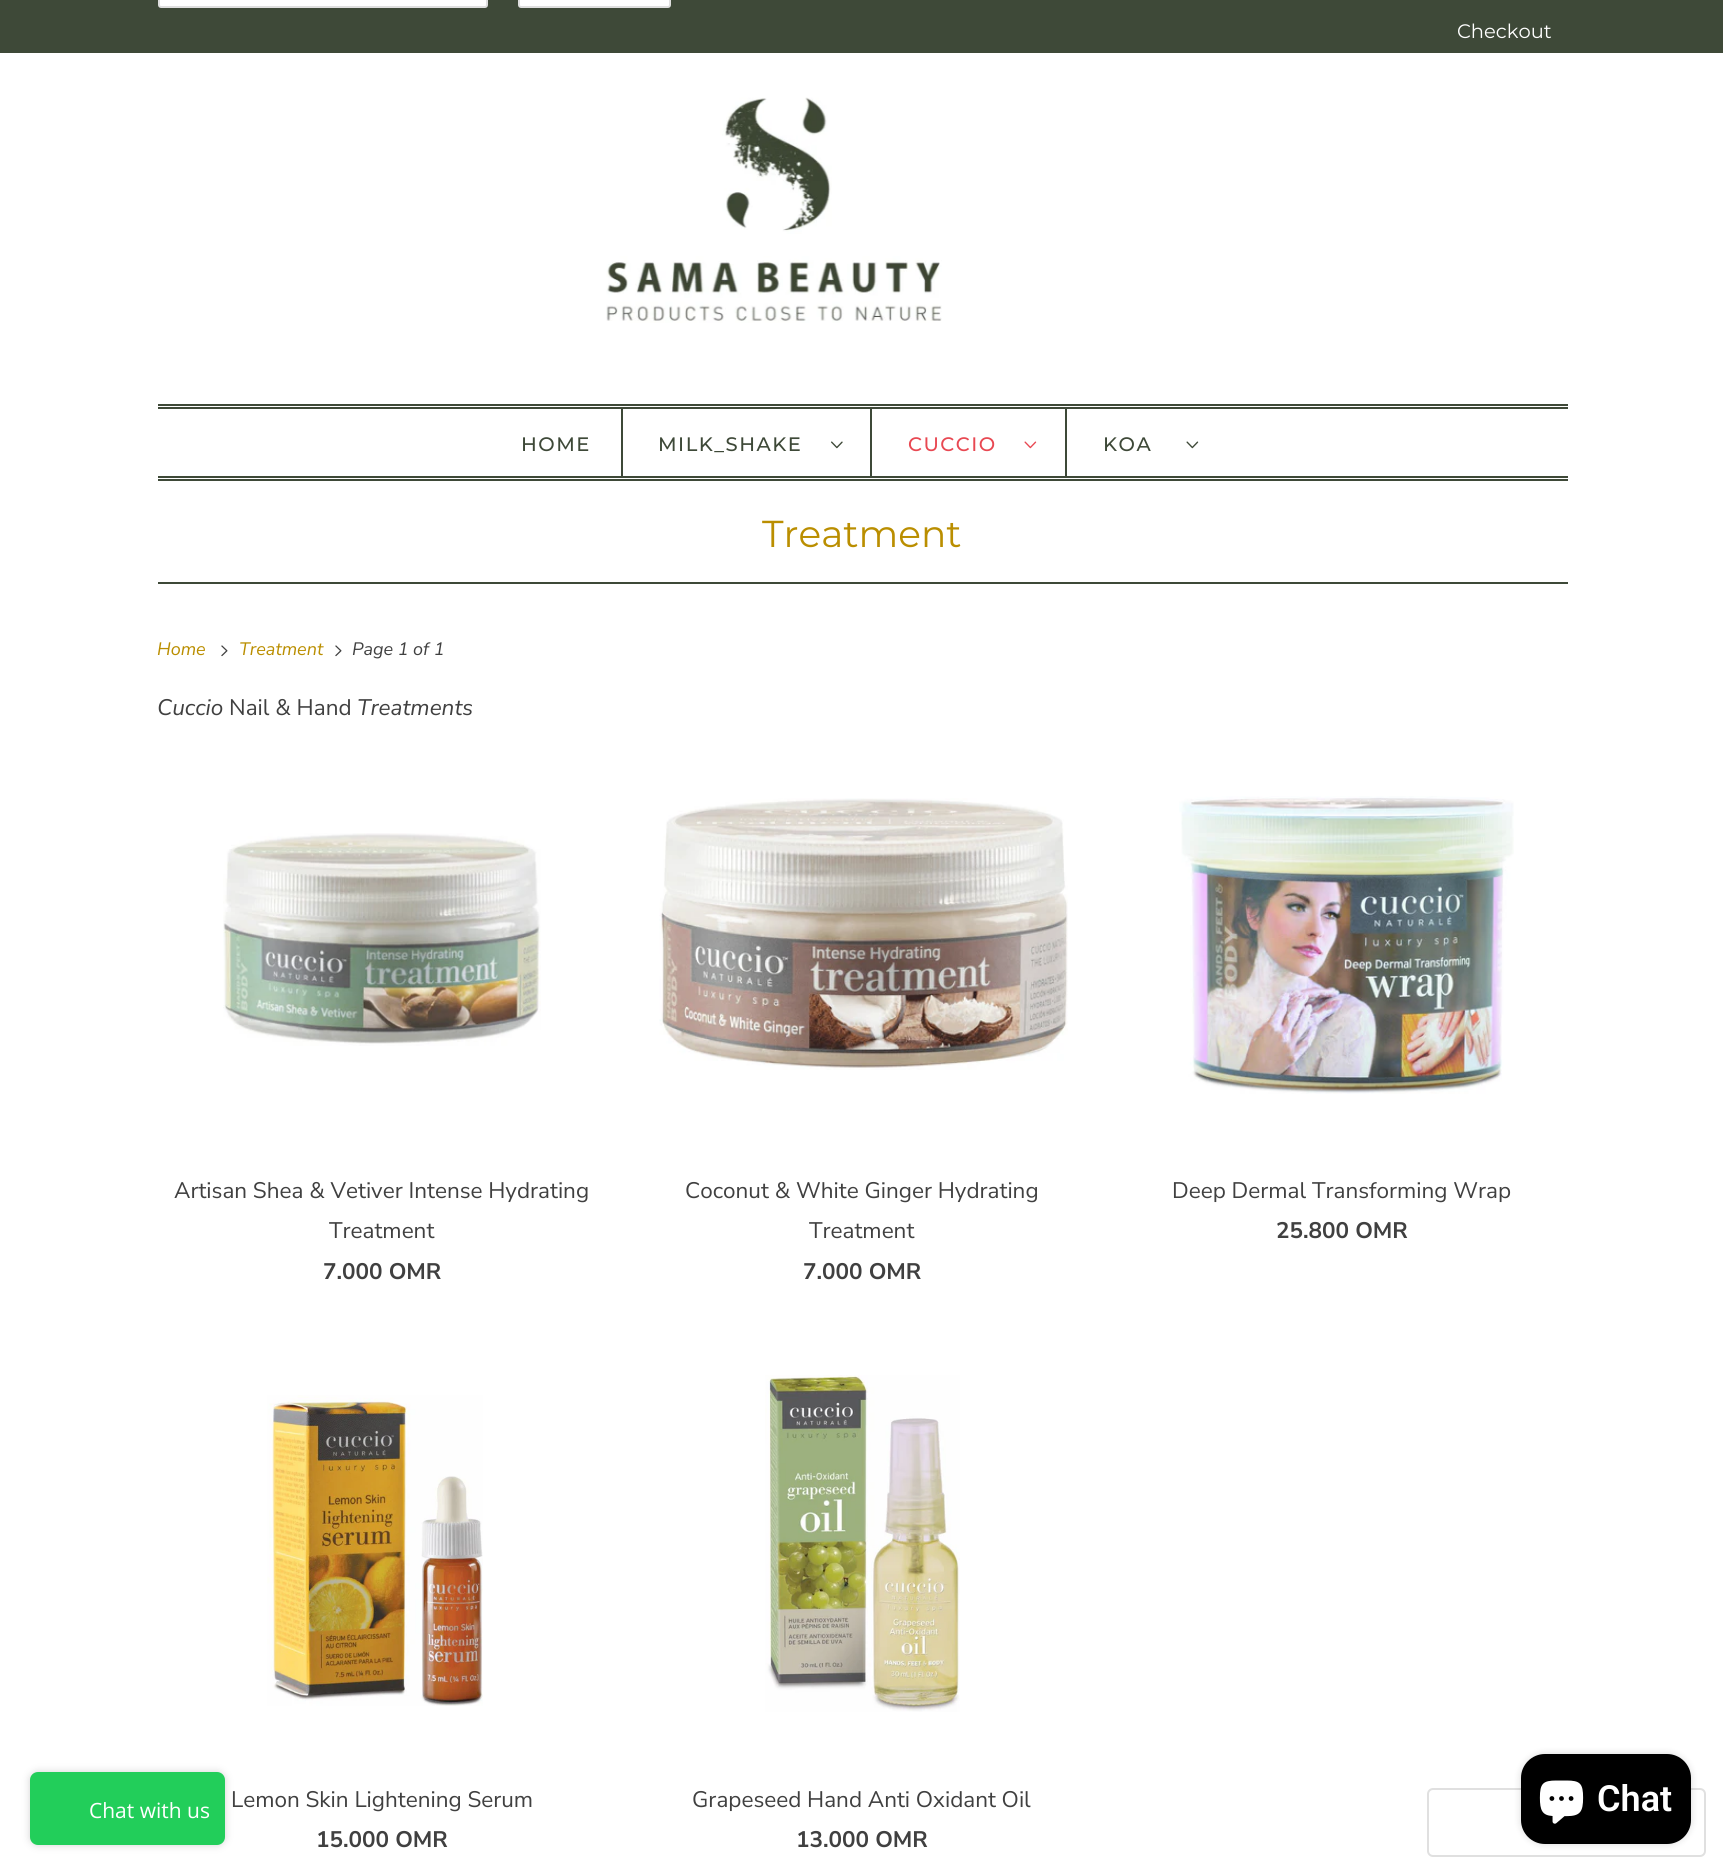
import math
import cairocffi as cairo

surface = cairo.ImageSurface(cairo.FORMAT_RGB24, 1723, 1875)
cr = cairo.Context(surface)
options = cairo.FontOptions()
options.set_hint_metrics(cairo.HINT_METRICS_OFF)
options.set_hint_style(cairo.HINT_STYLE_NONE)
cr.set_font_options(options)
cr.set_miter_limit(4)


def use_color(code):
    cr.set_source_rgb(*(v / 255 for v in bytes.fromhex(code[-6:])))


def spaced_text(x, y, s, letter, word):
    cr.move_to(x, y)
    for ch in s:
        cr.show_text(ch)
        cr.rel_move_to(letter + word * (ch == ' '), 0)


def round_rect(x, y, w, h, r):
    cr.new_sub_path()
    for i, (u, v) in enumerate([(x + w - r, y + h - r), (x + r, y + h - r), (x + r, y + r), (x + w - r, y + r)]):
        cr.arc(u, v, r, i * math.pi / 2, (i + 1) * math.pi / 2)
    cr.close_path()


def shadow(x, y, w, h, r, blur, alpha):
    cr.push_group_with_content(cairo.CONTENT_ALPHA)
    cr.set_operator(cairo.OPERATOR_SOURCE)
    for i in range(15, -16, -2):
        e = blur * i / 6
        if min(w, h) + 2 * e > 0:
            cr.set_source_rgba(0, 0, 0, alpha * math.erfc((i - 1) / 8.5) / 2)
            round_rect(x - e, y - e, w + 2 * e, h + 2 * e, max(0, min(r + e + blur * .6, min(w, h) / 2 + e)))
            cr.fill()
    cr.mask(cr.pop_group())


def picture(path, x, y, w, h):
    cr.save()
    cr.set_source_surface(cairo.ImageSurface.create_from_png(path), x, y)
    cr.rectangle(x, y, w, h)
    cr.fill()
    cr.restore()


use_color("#ffffff")
cr.paint()
use_color("#3e4938")
cr.rectangle(0, 0, 1723, 53)
cr.fill()
use_color("#ffffff")
round_rect(159, -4, 328, 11, 2)
cr.fill_preserve()
use_color("#dfdfdf")
cr.stroke()
use_color("#ffffff")
round_rect(519, -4, 151, 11, 2)
cr.fill_preserve()
use_color("#dfdfdf")
cr.stroke()
cr.select_font_face("Montserrat")
cr.set_font_size(19.5)
use_color("#ffffff")
cr.move_to(1457, 38)
cr.show_text("Checkout")
picture("img1.png", 606, 97, 336, 226)
use_color("#3e4938")
cr.rectangle(158, 404, 1410, 2)
cr.fill()
cr.rectangle(158, 407, 1410, 2)
cr.fill()
cr.rectangle(158, 476, 1410, 2)
cr.fill()
cr.rectangle(158, 479, 1410, 2)
cr.fill()
cr.rectangle(621, 408, 2, 68)
cr.fill()
cr.select_font_face("Montserrat Medium")
spaced_text(521, 451, "HOME", 1.5, 0)
cr.rectangle(870, 408, 2, 68)
cr.fill()
spaced_text(658, 451, "MILK_SHAKE", 1.5, 0)
picture("img2.png", 831, 441, 12, 8)
cr.rectangle(1065, 408, 2, 68)
cr.fill()
use_color("#e84852")
spaced_text(908, 451, "CUCCIO", 1.5, 0)
picture("img3.png", 1024, 441, 13, 8)
use_color("#3e4938")
spaced_text(1103, 451, "KOA", 1.5, 0)
picture("img4.png", 1186, 441, 13, 8)
cr.rectangle(158, 582, 1410, 2)
cr.fill()
cr.select_font_face("Montserrat")
cr.set_font_size(37.5)
use_color("#ba8e00")
cr.move_to(762, 547)
cr.show_text("Treatment")
cr.select_font_face("Nunito Sans", cairo.FONT_SLANT_ITALIC)
cr.set_font_size(18)
cr.move_to(157, 655)
cr.show_text("Home")
picture("img5.png", 221, 645, 7, 12)
cr.move_to(239, 655)
cr.show_text("Treatment")
picture("img5.png", 335, 645, 7, 12)
use_color("#404040")
cr.move_to(352, 655)
cr.show_text("Page 1 of 1")
cr.set_font_size(22.5)
cr.move_to(157, 715)
cr.show_text("Cuccio")
cr.select_font_face("Nunito Sans")
cr.move_to(229, 715)
cr.show_text("Nail & Hand")
cr.select_font_face("Nunito Sans", cairo.FONT_SLANT_ITALIC)
cr.move_to(357, 715)
cr.show_text("Treatments")
picture("img6.png", 223, 833, 318, 213)
cr.select_font_face("Nunito Sans")
cr.move_to(174, 1198)
cr.show_text("Artisan Shea & Vetiver Intense Hydrating")
cr.move_to(329, 1238)
cr.show_text("Treatment")
cr.select_font_face("Nunito Sans", cairo.FONT_SLANT_NORMAL, cairo.FONT_WEIGHT_BOLD)
cr.move_to(323, 1279)
cr.show_text("7.000 OMR")
picture("img7.png", 659, 798, 409, 272)
cr.select_font_face("Nunito Sans")
cr.move_to(685, 1198)
cr.show_text("Coconut & White Ginger Hydrating")
cr.move_to(809, 1238)
cr.show_text("Treatment")
cr.select_font_face("Nunito Sans", cairo.FONT_SLANT_NORMAL, cairo.FONT_WEIGHT_BOLD)
cr.move_to(803, 1279)
cr.show_text("7.000 OMR")
picture("img8.png", 1179, 796, 335, 298)
cr.select_font_face("Nunito Sans")
cr.move_to(1172, 1198)
cr.show_text("Deep Dermal Transforming Wrap")
cr.select_font_face("Nunito Sans", cairo.FONT_SLANT_NORMAL, cairo.FONT_WEIGHT_BOLD)
cr.move_to(1276, 1238)
cr.show_text("25.800 OMR")
picture("img9.png", 267, 1395, 216, 311)
cr.select_font_face("Nunito Sans")
cr.move_to(231, 1807)
cr.show_text("Lemon Skin Lightening Serum")
cr.select_font_face("Nunito Sans", cairo.FONT_SLANT_NORMAL, cairo.FONT_WEIGHT_BOLD)
cr.move_to(316, 1847)
cr.show_text("15.000 OMR")
picture("img10.png", 765, 1375, 195, 337)
cr.select_font_face("Nunito Sans")
cr.move_to(692, 1807)
cr.show_text("Grapeseed Hand Anti Oxidant Oil")
cr.select_font_face("Nunito Sans", cairo.FONT_SLANT_NORMAL, cairo.FONT_WEIGHT_BOLD)
cr.move_to(796, 1847)
cr.show_text("13.000 OMR")
round_rect(1428, 1789, 277, 67, 5)
use_color("#e0e0e0")
cr.stroke()
use_color("#000000")
shadow(1521, 1754, 170, 90, 24, 4, 0.15)
use_color("#000000")
round_rect(1521, 1754, 170, 90, 24)
cr.fill()
picture("img11.png", 1539, 1780, 45, 44)
cr.select_font_face("Roboto SemiBold")
cr.set_font_size(36)
use_color("#ffffff")
cr.move_to(1597, 1811)
cr.show_text("Chat")
use_color("#d3d3d3")
shadow(30, 1772, 195, 73, 8, 4, 1)
use_color("#22ce5a")
round_rect(30, 1772, 195, 73, 8)
cr.fill()
cr.select_font_face("Open Sans")
cr.set_font_size(21)
use_color("#ffffff")
cr.move_to(89, 1818)
cr.show_text("Chat with us")
surface.write_to_png("result.png")
